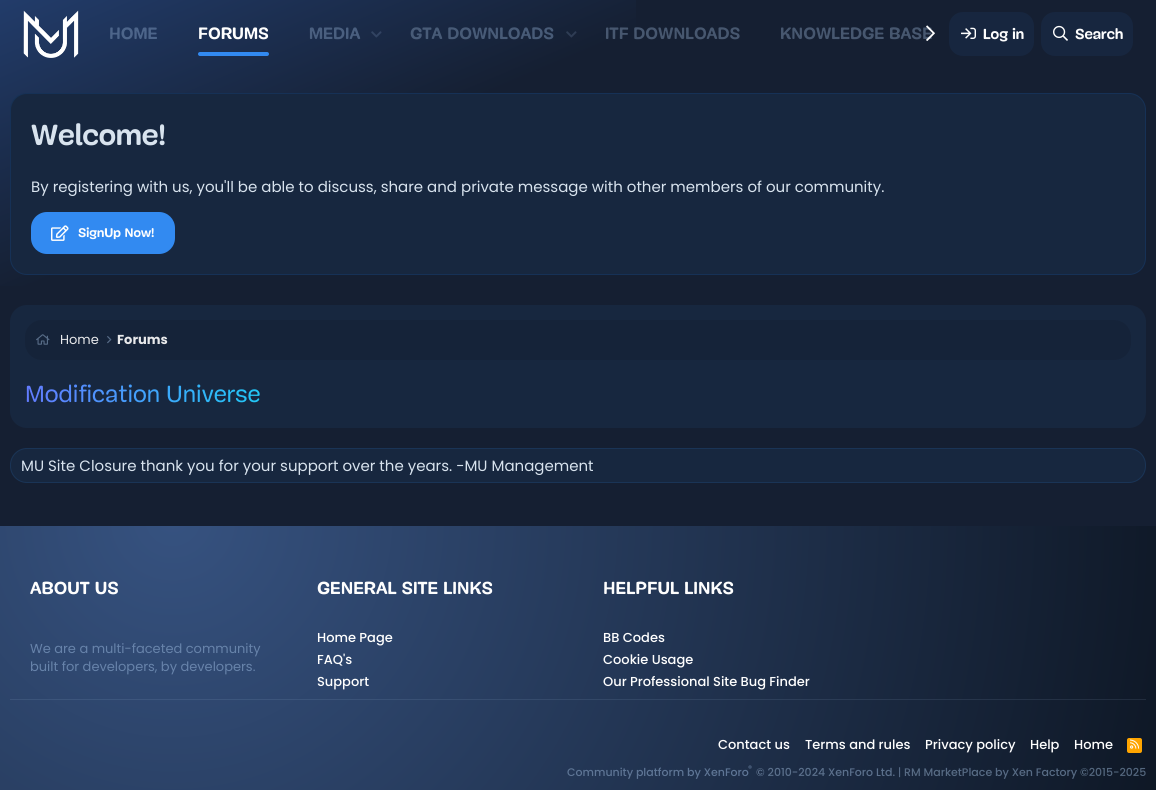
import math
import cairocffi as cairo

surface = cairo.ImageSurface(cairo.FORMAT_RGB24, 1156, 790)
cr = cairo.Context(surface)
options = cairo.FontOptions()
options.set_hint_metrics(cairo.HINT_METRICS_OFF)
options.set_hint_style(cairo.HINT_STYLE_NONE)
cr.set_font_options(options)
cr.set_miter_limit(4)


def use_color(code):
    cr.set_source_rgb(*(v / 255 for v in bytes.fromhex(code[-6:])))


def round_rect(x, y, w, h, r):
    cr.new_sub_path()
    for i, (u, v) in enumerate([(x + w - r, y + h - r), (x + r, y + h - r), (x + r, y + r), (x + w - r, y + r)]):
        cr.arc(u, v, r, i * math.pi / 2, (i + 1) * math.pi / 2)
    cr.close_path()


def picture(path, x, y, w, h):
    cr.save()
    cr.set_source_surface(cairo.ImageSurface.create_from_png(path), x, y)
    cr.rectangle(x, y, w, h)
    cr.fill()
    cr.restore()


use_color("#151f32")
cr.paint()
gradient = cairo.LinearGradient(0, 0, 107, 254)
gradient.add_color_stop_rgba(0, 0.133, 0.235, 0.416, 1)
gradient.add_color_stop_rgba(1, 0.082, 0.122, 0.196, 1)
cr.set_source(gradient)
cr.rectangle(0, 0, 636, 286)
cr.fill()
picture("img1.png", 23, 10, 56, 48)
cr.select_font_face("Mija", cairo.FONT_SLANT_NORMAL, cairo.FONT_WEIGHT_BOLD)
cr.set_font_size(17)
use_color("#47576f")
cr.move_to(780, 39)
cr.show_text("KNOWLEDGE BASE")
picture("img2.png", 926, 25, 9, 16)
use_color("#4d658a")
cr.move_to(109, 39)
cr.show_text("HOME")
use_color("#fefefe")
cr.move_to(198, 39)
cr.show_text("FORUMS")
use_color("#328af1")
round_rect(198, 52, 71, 4, 2)
cr.fill()
use_color("#4a5f7f")
cr.move_to(309, 39)
cr.show_text("MEDIA")
picture("img3.png", 371, 31, 11, 7)
use_color("#485b77")
cr.move_to(410, 39)
cr.show_text("GTA DOWNLOADS")
picture("img4.png", 566, 31, 11, 7)
use_color("#47576f")
cr.move_to(605, 39)
cr.show_text("ITF DOWNLOADS")
use_color("#17263f")
round_rect(949, 12, 85, 44, 14)
cr.fill()
picture("img5.png", 961, 27, 15, 12)
cr.set_font_size(15)
use_color("#fefefe")
cr.move_to(983, 39)
cr.show_text("Log in")
use_color("#17263f")
round_rect(1041, 12, 92, 44, 14)
cr.fill()
picture("img6.png", 1053, 25, 15, 16)
use_color("#fefefe")
cr.move_to(1075, 39)
cr.show_text("Search")
use_color("#17273f")
round_rect(10, 93, 1136, 182, 17)
cr.fill()
round_rect(10.5, 93.5, 1135, 181, 16.5)
cr.set_source_rgba(0.082, 0.478, 0.937, 0.13)
cr.set_line_width(1)
cr.stroke()
cr.set_font_size(30)
use_color("#d8e3ee")
cr.move_to(31, 145)
cr.show_text("Welcome!")
cr.select_font_face("Poppins")
cr.set_font_size(15)
cr.move_to(31, 192)
cr.show_text("By registering with us, you'll be able to discuss, share and private message with other members of our community.")
use_color("#328af1")
round_rect(31, 212, 144, 42, 16)
cr.fill()
picture("img7.png", 51, 225, 18, 16)
cr.select_font_face("Mija", cairo.FONT_SLANT_NORMAL, cairo.FONT_WEIGHT_BOLD)
cr.set_font_size(13)
use_color("#fefefe")
cr.move_to(78, 237)
cr.show_text("SignUp Now!")
use_color("#17273f")
round_rect(10, 305, 1136, 123, 17)
cr.fill()
use_color("#152339")
round_rect(25, 320, 1106, 40, 17)
cr.fill()
picture("img8.png", 36, 334, 14, 11)
cr.select_font_face("Poppins")
use_color("#e8e9eb")
cr.move_to(60, 344)
cr.show_text("Home")
picture("img9.png", 107, 336, 5, 8)
cr.select_font_face("Poppins", cairo.FONT_SLANT_NORMAL, cairo.FONT_WEIGHT_BOLD)
cr.move_to(117, 344)
cr.show_text("Forums")
cr.select_font_face("Mija")
cr.set_font_size(24)
gradient = cairo.LinearGradient(261, 397, 25, 397)
gradient.add_color_stop_rgba(0, 0.129, 0.784, 0.965, 1)
gradient.add_color_stop_rgba(1, 0.388, 0.482, 1, 1)
cr.set_source(gradient)
cr.move_to(25, 402)
cr.show_text("Modification Universe")
use_color("#17273f")
round_rect(10, 448, 1136, 35, 17)
cr.fill()
round_rect(10.5, 448.5, 1135, 34, 16.5)
cr.set_source_rgba(0.196, 0.541, 0.945, 0.13)
cr.stroke()
cr.select_font_face("Poppins")
cr.set_font_size(15)
use_color("#d8e3ee")
cr.move_to(21, 471)
cr.show_text("MU Site Closure thank you for your support over the years. -MU Management")
gradient = cairo.RadialGradient(173, 518, 0, 173, 518, 1183)
gradient.add_color_stop_rgba(0, 0.212, 0.322, 0.502, 1)
gradient.add_color_stop_rgba(1, 0.031, 0.055, 0.09, 1)
cr.set_source(gradient)
cr.rectangle(0, 526, 1156, 264)
cr.fill()
gradient = cairo.RadialGradient(173, 518, 0, 173, 518, 1183)
gradient.add_color_stop_rgba(0, 0.263, 0.376, 0.549, 1)
gradient.add_color_stop_rgba(1, 0.102, 0.133, 0.18, 1)
cr.set_source(gradient)
cr.rectangle(10, 699, 1136, 1)
cr.fill()
cr.select_font_face("Mija", cairo.FONT_SLANT_NORMAL, cairo.FONT_WEIGHT_BOLD)
cr.set_font_size(18)
use_color("#fefefe")
cr.move_to(30, 594)
cr.show_text("ABOUT US")
cr.select_font_face("Poppins")
cr.set_font_size(13)
use_color("#6783aa")
cr.move_to(30, 653)
cr.show_text("We are a multi-faceted community")
cr.move_to(30, 671)
cr.show_text("built for developers, by developers.")
cr.select_font_face("Mija", cairo.FONT_SLANT_NORMAL, cairo.FONT_WEIGHT_BOLD)
cr.set_font_size(18)
use_color("#fefefe")
cr.move_to(317, 594)
cr.show_text("GENERAL SITE LINKS")
cr.select_font_face("Poppins Medium")
cr.set_font_size(13)
cr.move_to(317, 642)
cr.show_text("Home Page")
cr.move_to(317, 664)
cr.show_text("FAQ's")
cr.move_to(317, 686)
cr.show_text("Support")
cr.select_font_face("Mija", cairo.FONT_SLANT_NORMAL, cairo.FONT_WEIGHT_BOLD)
cr.set_font_size(18)
cr.move_to(603, 594)
cr.show_text("HELPFUL LINKS")
cr.select_font_face("Poppins Medium")
cr.set_font_size(13)
cr.move_to(603, 642)
cr.show_text("BB Codes")
cr.move_to(603, 664)
cr.show_text("Cookie Usage")
cr.move_to(603, 686)
cr.show_text("Our Professional Site Bug Finder")
cr.move_to(718, 749)
cr.show_text("Contact us")
cr.move_to(805, 749)
cr.show_text("Terms and rules")
cr.move_to(925, 749)
cr.show_text("Privacy policy")
cr.move_to(1030, 749)
cr.show_text("Help")
cr.move_to(1074, 749)
cr.show_text("Home")
use_color("#ffa500")
round_rect(1127, 738, 15, 15, 2)
cr.fill()
picture("img10.png", 1130, 739, 10, 10)
cr.set_font_size(11)
use_color("#5e7595")
cr.move_to(567, 776)
cr.show_text("Community platform by XenForo")
cr.set_font_size(8)
cr.move_to(748, 771)
cr.show_text("®")
cr.set_font_size(11)
use_color("#5b708c")
cr.move_to(756, 776)
cr.show_text("© 2010-2024 XenForo Ltd.")
cr.select_font_face("Poppins")
cr.move_to(898, 776)
cr.show_text("|")
cr.select_font_face("Poppins Medium")
use_color("#576b84")
cr.move_to(904, 776)
cr.show_text("RM MarketPlace by Xen Factory")
use_color("#54677e")
cr.move_to(1080, 776)
cr.show_text("©2015-2025")
surface.write_to_png("result.png")
